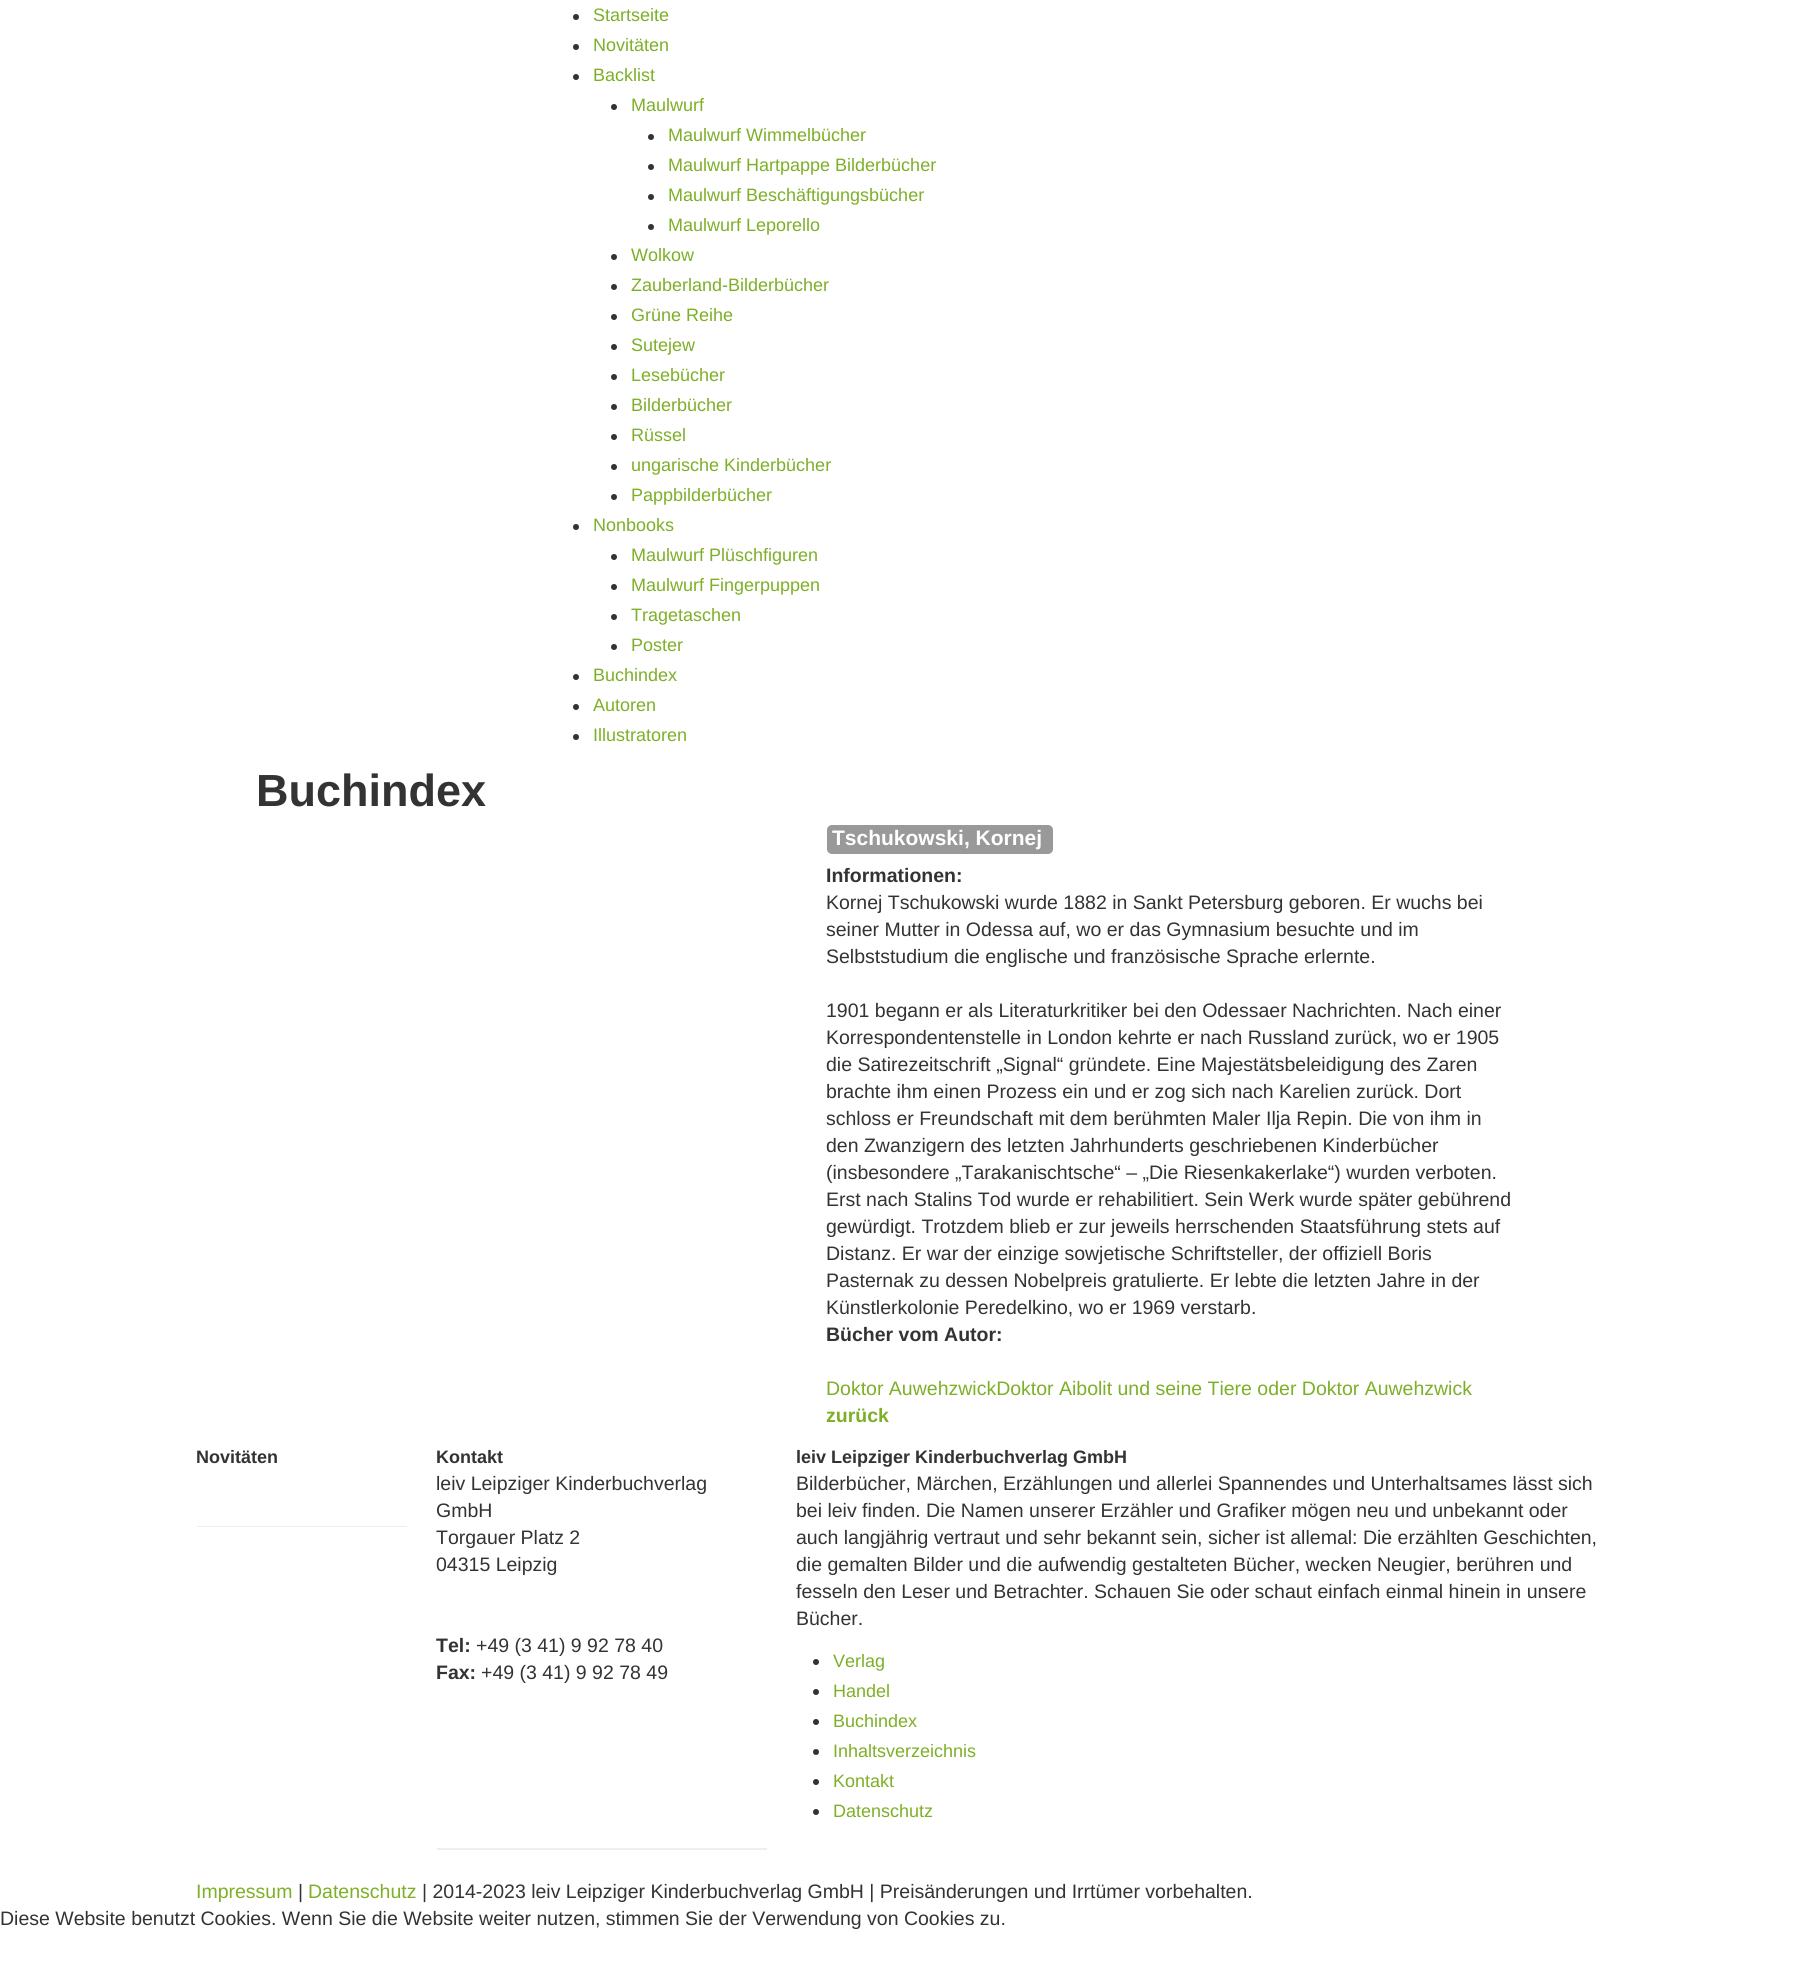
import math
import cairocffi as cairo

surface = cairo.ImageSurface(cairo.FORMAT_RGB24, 1801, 1969)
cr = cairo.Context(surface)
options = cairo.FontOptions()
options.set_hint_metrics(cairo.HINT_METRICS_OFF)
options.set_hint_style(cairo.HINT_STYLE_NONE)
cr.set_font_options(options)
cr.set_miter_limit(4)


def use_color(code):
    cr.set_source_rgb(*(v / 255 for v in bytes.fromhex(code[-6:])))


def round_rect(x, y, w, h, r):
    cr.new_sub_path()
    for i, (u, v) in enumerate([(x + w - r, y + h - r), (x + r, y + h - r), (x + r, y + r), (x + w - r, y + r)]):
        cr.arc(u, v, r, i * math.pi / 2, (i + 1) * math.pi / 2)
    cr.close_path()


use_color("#ffffff")
cr.paint()
use_color("#333333")
cr.arc(576, 17, 3, 0, 2 * math.pi)
cr.fill()
cr.select_font_face("Liberation Sans")
cr.set_font_size(18)
use_color("#7daf27")
cr.move_to(593, 21)
cr.show_text("Startseite")
use_color("#333333")
cr.new_path()
cr.arc(576, 47, 3, 0, 2 * math.pi)
cr.fill()
use_color("#7daf27")
cr.move_to(593, 51)
cr.show_text("Novitäten")
use_color("#333333")
cr.new_path()
cr.arc(576, 77, 3, 0, 2 * math.pi)
cr.fill()
use_color("#7daf27")
cr.move_to(593, 81)
cr.show_text("Backlist")
use_color("#333333")
cr.new_path()
cr.arc(614, 107, 3, 0, 2 * math.pi)
cr.fill()
use_color("#7daf27")
cr.move_to(631, 111)
cr.show_text("Maulwurf")
use_color("#333333")
cr.new_path()
cr.arc(651, 137, 3, 0, 2 * math.pi)
cr.fill()
use_color("#7daf27")
cr.move_to(668, 141)
cr.show_text("Maulwurf Wimmelbücher")
use_color("#333333")
cr.new_path()
cr.arc(651, 167, 3, 0, 2 * math.pi)
cr.fill()
use_color("#7daf27")
cr.move_to(668, 171)
cr.show_text("Maulwurf Hartpappe Bilderbücher")
use_color("#333333")
cr.new_path()
cr.arc(651, 197, 3, 0, 2 * math.pi)
cr.fill()
use_color("#7daf27")
cr.move_to(668, 201)
cr.show_text("Maulwurf Beschäftigungsbücher")
use_color("#333333")
cr.new_path()
cr.arc(651, 227, 3, 0, 2 * math.pi)
cr.fill()
use_color("#7daf27")
cr.move_to(668, 231)
cr.show_text("Maulwurf Leporello")
use_color("#333333")
cr.new_path()
cr.arc(614, 257, 3, 0, 2 * math.pi)
cr.fill()
use_color("#7daf27")
cr.move_to(631, 261)
cr.show_text("Wolkow")
use_color("#333333")
cr.new_path()
cr.arc(614, 287, 3, 0, 2 * math.pi)
cr.fill()
use_color("#7daf27")
cr.move_to(631, 291)
cr.show_text("Zauberland-Bilderbücher")
use_color("#333333")
cr.new_path()
cr.arc(614, 317, 3, 0, 2 * math.pi)
cr.fill()
use_color("#7daf27")
cr.move_to(631, 321)
cr.show_text("Grüne Reihe")
use_color("#333333")
cr.new_path()
cr.arc(614, 347, 3, 0, 2 * math.pi)
cr.fill()
use_color("#7daf27")
cr.move_to(631, 351)
cr.show_text("Sutejew")
use_color("#333333")
cr.new_path()
cr.arc(614, 377, 3, 0, 2 * math.pi)
cr.fill()
use_color("#7daf27")
cr.move_to(631, 381)
cr.show_text("Lesebücher")
use_color("#333333")
cr.new_path()
cr.arc(614, 407, 3, 0, 2 * math.pi)
cr.fill()
use_color("#7daf27")
cr.move_to(631, 411)
cr.show_text("Bilderbücher")
use_color("#333333")
cr.new_path()
cr.arc(614, 437, 3, 0, 2 * math.pi)
cr.fill()
use_color("#7daf27")
cr.move_to(631, 441)
cr.show_text("Rüssel")
use_color("#333333")
cr.new_path()
cr.arc(614, 467, 3, 0, 2 * math.pi)
cr.fill()
use_color("#7daf27")
cr.move_to(631, 471)
cr.show_text("ungarische Kinderbücher")
use_color("#333333")
cr.new_path()
cr.arc(614, 497, 3, 0, 2 * math.pi)
cr.fill()
use_color("#7daf27")
cr.move_to(631, 501)
cr.show_text("Pappbilderbücher")
use_color("#333333")
cr.new_path()
cr.arc(576, 527, 3, 0, 2 * math.pi)
cr.fill()
use_color("#7daf27")
cr.move_to(593, 531)
cr.show_text("Nonbooks")
use_color("#333333")
cr.new_path()
cr.arc(614, 557, 3, 0, 2 * math.pi)
cr.fill()
use_color("#7daf27")
cr.move_to(631, 561)
cr.show_text("Maulwurf Plüschfiguren")
use_color("#333333")
cr.new_path()
cr.arc(614, 587, 3, 0, 2 * math.pi)
cr.fill()
use_color("#7daf27")
cr.move_to(631, 591)
cr.show_text("Maulwurf Fingerpuppen")
use_color("#333333")
cr.new_path()
cr.arc(614, 617, 3, 0, 2 * math.pi)
cr.fill()
use_color("#7daf27")
cr.move_to(631, 621)
cr.show_text("Tragetaschen")
use_color("#333333")
cr.new_path()
cr.arc(614, 647, 3, 0, 2 * math.pi)
cr.fill()
use_color("#7daf27")
cr.move_to(631, 651)
cr.show_text("Poster")
use_color("#333333")
cr.new_path()
cr.arc(576, 677, 3, 0, 2 * math.pi)
cr.fill()
use_color("#7daf27")
cr.move_to(593, 681)
cr.show_text("Buchindex")
use_color("#333333")
cr.new_path()
cr.arc(576, 707, 3, 0, 2 * math.pi)
cr.fill()
use_color("#7daf27")
cr.move_to(593, 711)
cr.show_text("Autoren")
use_color("#333333")
cr.new_path()
cr.arc(576, 737, 3, 0, 2 * math.pi)
cr.fill()
use_color("#7daf27")
cr.move_to(593, 741)
cr.show_text("Illustratoren")
cr.select_font_face("Liberation Sans", cairo.FONT_SLANT_NORMAL, cairo.FONT_WEIGHT_BOLD)
cr.set_font_size(45)
use_color("#333333")
cr.move_to(256, 806)
cr.show_text("Buchindex")
use_color("#999999")
round_rect(827, 825, 226, 29, 5)
cr.fill()
cr.set_font_size(21)
use_color("#ffffff")
cr.move_to(832, 845)
cr.show_text("Tschukowski, Kornej")
cr.set_font_size(19.5)
use_color("#333333")
cr.move_to(826, 882)
cr.show_text("Informationen:")
cr.select_font_face("Liberation Sans")
cr.move_to(826, 909)
cr.show_text("Kornej Tschukowski wurde 1882 in Sankt Petersburg geboren. Er wuchs bei")
cr.move_to(826, 936)
cr.show_text("seiner Mutter in Odessa auf, wo er das Gymnasium besuchte und im")
cr.move_to(826, 963)
cr.show_text("Selbststudium die englische und französische Sprache erlernte.")
cr.move_to(826, 1017)
cr.show_text("1901 begann er als Literaturkritiker bei den Odessaer Nachrichten. Nach einer")
cr.move_to(826, 1044)
cr.show_text("Korrespondentenstelle in London kehrte er nach Russland zurück, wo er 1905")
cr.move_to(826, 1071)
cr.show_text("die Satirezeitschrift „Signal“ gründete. Eine Majestätsbeleidigung des Zaren")
cr.move_to(826, 1098)
cr.show_text("brachte ihm einen Prozess ein und er zog sich nach Karelien zurück. Dort")
cr.move_to(826, 1125)
cr.show_text("schloss er Freundschaft mit dem berühmten Maler Ilja Repin. Die von ihm in")
cr.move_to(826, 1152)
cr.show_text("den Zwanzigern des letzten Jahrhunderts geschriebenen Kinderbücher")
cr.move_to(826, 1179)
cr.show_text("(insbesondere „Tarakanischtsche“ – „Die Riesenkakerlake“) wurden verboten.")
cr.move_to(826, 1206)
cr.show_text("Erst nach Stalins Tod wurde er rehabilitiert. Sein Werk wurde später gebührend")
cr.move_to(826, 1233)
cr.show_text("gewürdigt. Trotzdem blieb er zur jeweils herrschenden Staatsführung stets auf")
cr.move_to(826, 1260)
cr.show_text("Distanz. Er war der einzige sowjetische Schriftsteller, der offiziell Boris")
cr.move_to(826, 1287)
cr.show_text("Pasternak zu dessen Nobelpreis gratulierte. Er lebte die letzten Jahre in der")
cr.move_to(826, 1314)
cr.show_text("Künstlerkolonie Peredelkino, wo er 1969 verstarb.")
cr.select_font_face("Liberation Sans", cairo.FONT_SLANT_NORMAL, cairo.FONT_WEIGHT_BOLD)
cr.move_to(826, 1341)
cr.show_text("Bücher vom Autor:")
cr.select_font_face("Liberation Sans")
use_color("#7daf27")
cr.move_to(826, 1395)
cr.show_text("Doktor AuwehzwickDoktor Aibolit und seine Tiere oder Doktor Auwehzwick")
cr.select_font_face("Liberation Sans", cairo.FONT_SLANT_NORMAL, cairo.FONT_WEIGHT_BOLD)
cr.move_to(826, 1422)
cr.show_text("zurück")
cr.set_font_size(18)
use_color("#333333")
cr.move_to(196, 1463)
cr.show_text("Novitäten")
use_color("#eeeeee")
cr.rectangle(197, 1526, 210, 1)
cr.fill()
use_color("#333333")
cr.move_to(436, 1463)
cr.show_text("Kontakt")
cr.select_font_face("Liberation Sans")
cr.set_font_size(19.5)
cr.move_to(436, 1490)
cr.show_text("leiv Leipziger Kinderbuchverlag")
cr.move_to(436, 1517)
cr.show_text("GmbH")
cr.move_to(436, 1544)
cr.show_text("Torgauer Platz 2")
cr.move_to(436, 1571)
cr.show_text("04315 Leipzig")
cr.select_font_face("Liberation Sans", cairo.FONT_SLANT_NORMAL, cairo.FONT_WEIGHT_BOLD)
cr.move_to(436, 1652)
cr.show_text("Tel:")
cr.select_font_face("Liberation Sans")
cr.move_to(476, 1652)
cr.show_text("+49 (3 41) 9 92 78 40")
cr.select_font_face("Liberation Sans", cairo.FONT_SLANT_NORMAL, cairo.FONT_WEIGHT_BOLD)
cr.move_to(436, 1679)
cr.show_text("Fax:")
cr.select_font_face("Liberation Sans")
cr.move_to(481, 1679)
cr.show_text("+49 (3 41) 9 92 78 49")
use_color("#eeeeee")
cr.rectangle(437, 1848, 330, 2)
cr.fill()
cr.select_font_face("Liberation Sans", cairo.FONT_SLANT_NORMAL, cairo.FONT_WEIGHT_BOLD)
cr.set_font_size(18)
use_color("#333333")
cr.move_to(796, 1463)
cr.show_text("leiv Leipziger Kinderbuchverlag GmbH")
cr.select_font_face("Liberation Sans")
cr.set_font_size(19.5)
cr.move_to(796, 1490)
cr.show_text("Bilderbücher, Märchen, Erzählungen und allerlei Spannendes und Unterhaltsames lässt sich")
cr.move_to(796, 1517)
cr.show_text("bei leiv finden. Die Namen unserer Erzähler und Grafiker mögen neu und unbekannt oder")
cr.move_to(796, 1544)
cr.show_text("auch langjährig vertraut und sehr bekannt sein, sicher ist allemal: Die erzählten Geschichten,")
cr.move_to(796, 1571)
cr.show_text("die gemalten Bilder und die aufwendig gestalteten Bücher, wecken Neugier, berühren und")
cr.move_to(796, 1598)
cr.show_text("fesseln den Leser und Betrachter. Schauen Sie oder schaut einfach einmal hinein in unsere")
cr.move_to(796, 1625)
cr.show_text("Bücher.")
cr.new_path()
cr.arc(816, 1662, 3, 0, 2 * math.pi)
cr.fill()
cr.set_font_size(18)
use_color("#7daf27")
cr.move_to(833, 1667)
cr.show_text("Verlag")
use_color("#333333")
cr.new_path()
cr.arc(816, 1692, 3, 0, 2 * math.pi)
cr.fill()
use_color("#7daf27")
cr.move_to(833, 1697)
cr.show_text("Handel")
use_color("#333333")
cr.new_path()
cr.arc(816, 1722, 3, 0, 2 * math.pi)
cr.fill()
use_color("#7daf27")
cr.move_to(833, 1727)
cr.show_text("Buchindex")
use_color("#333333")
cr.new_path()
cr.arc(816, 1752, 3, 0, 2 * math.pi)
cr.fill()
use_color("#7daf27")
cr.move_to(833, 1757)
cr.show_text("Inhaltsverzeichnis")
use_color("#333333")
cr.new_path()
cr.arc(816, 1782, 3, 0, 2 * math.pi)
cr.fill()
use_color("#7daf27")
cr.move_to(833, 1787)
cr.show_text("Kontakt")
use_color("#333333")
cr.new_path()
cr.arc(816, 1812, 3, 0, 2 * math.pi)
cr.fill()
use_color("#7daf27")
cr.move_to(833, 1817)
cr.show_text("Datenschutz")
cr.set_font_size(19.5)
cr.move_to(196, 1898)
cr.show_text("Impressum")
use_color("#333333")
cr.move_to(298, 1898)
cr.show_text("|")
use_color("#7daf27")
cr.move_to(308, 1898)
cr.show_text("Datenschutz")
use_color("#333333")
cr.move_to(422, 1898)
cr.show_text("| 2014-2023 leiv Leipziger Kinderbuchverlag GmbH | Preisänderungen und Irrtümer vorbehalten.")
cr.move_to(0, 1925)
cr.show_text("Diese Website benutzt Cookies. Wenn Sie die Website weiter nutzen, stimmen Sie der Verwendung von Cookies zu.")
surface.write_to_png("result.png")
